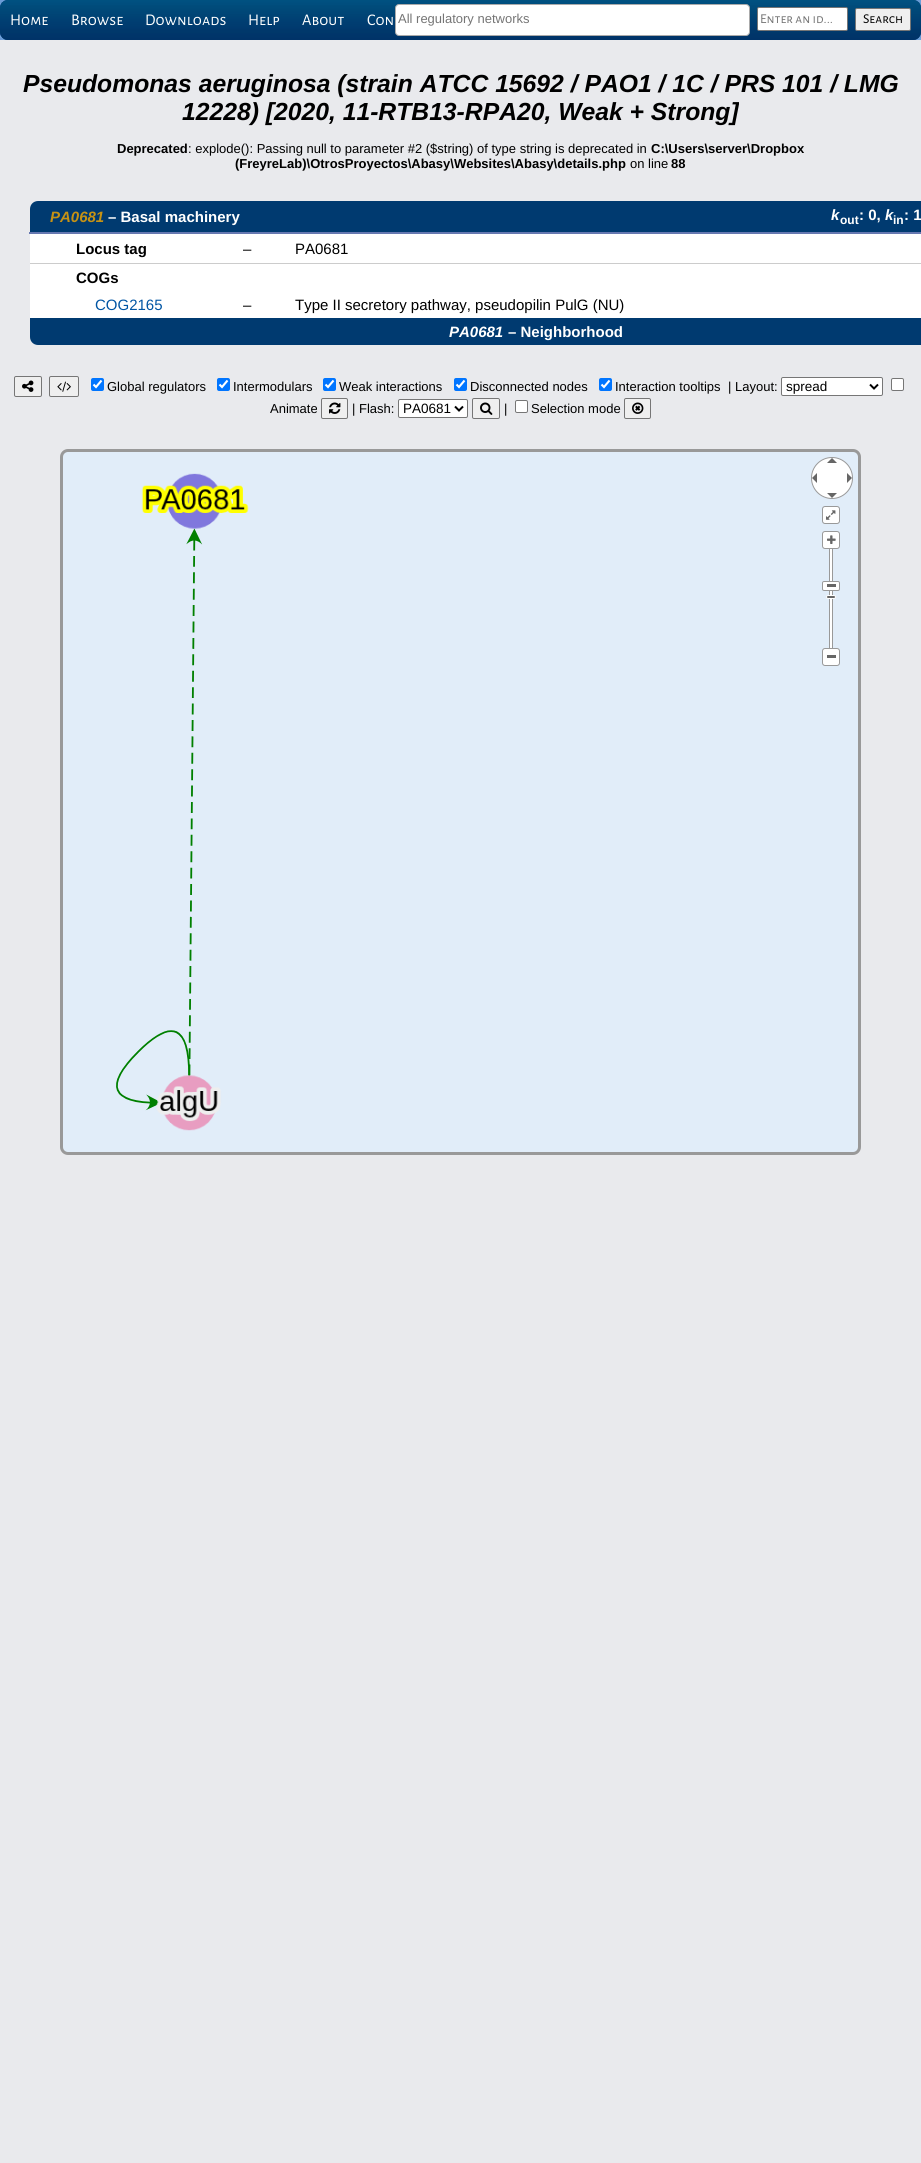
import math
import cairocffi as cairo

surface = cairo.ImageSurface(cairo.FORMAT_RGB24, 921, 2163)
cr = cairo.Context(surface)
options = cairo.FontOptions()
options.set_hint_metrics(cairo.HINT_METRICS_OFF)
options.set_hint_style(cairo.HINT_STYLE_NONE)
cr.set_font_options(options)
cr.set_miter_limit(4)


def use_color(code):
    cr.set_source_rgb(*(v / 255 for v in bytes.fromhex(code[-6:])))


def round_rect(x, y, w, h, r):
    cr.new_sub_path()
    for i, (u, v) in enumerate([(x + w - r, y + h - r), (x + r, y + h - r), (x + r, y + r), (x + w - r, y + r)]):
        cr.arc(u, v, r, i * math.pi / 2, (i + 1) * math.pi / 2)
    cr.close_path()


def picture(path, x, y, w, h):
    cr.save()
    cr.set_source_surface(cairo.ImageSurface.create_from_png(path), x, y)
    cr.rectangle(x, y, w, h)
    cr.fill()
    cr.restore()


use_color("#e9eaed")
cr.paint()
picture("img1.png", 0, 0, 921, 40)
use_color("#003a70")
round_rect(0, 0, 921, 40, 8)
cr.fill()
picture("img2.png", 0, 0, 921, 40)
cr.select_font_face("Alegreya Sans SC")
cr.set_font_size(16.25)
use_color("#ffffff")
cr.move_to(10, 25)
cr.show_text("Home")
cr.move_to(71, 25)
cr.show_text("Browse")
cr.move_to(145, 25)
cr.show_text("Downloads")
cr.move_to(248, 25)
cr.show_text("Help")
cr.move_to(302, 25)
cr.show_text("About")
cr.move_to(367, 25)
cr.show_text("Con")
round_rect(395.5, 4.5, 354, 31, 3.5)
cr.fill_preserve()
use_color("#aaaaaa")
cr.set_line_width(1)
cr.stroke()
cr.select_font_face("Liberation Sans")
cr.set_font_size(13)
use_color("#757575")
cr.move_to(398, 23)
cr.show_text("All regulatory networks")
use_color("#ffffff")
round_rect(757.5, 7.5, 90, 23, 1.5)
cr.fill_preserve()
use_color("#767676")
cr.stroke()
cr.select_font_face("Alegreya Sans SC")
cr.set_font_size(13.5)
use_color("#757575")
cr.move_to(760, 23)
cr.show_text("Enter an id...")
use_color("#efefef")
round_rect(855.5, 8.5, 55, 22, 1.5)
cr.fill_preserve()
use_color("#767676")
cr.stroke()
use_color("#000000")
cr.move_to(863, 23)
cr.show_text("Search")
cr.select_font_face("Liberation Sans", cairo.FONT_SLANT_ITALIC, cairo.FONT_WEIGHT_BOLD)
cr.set_font_size(24.7)
cr.move_to(23, 92)
cr.show_text("Pseudomonas aeruginosa (strain ATCC 15692 / PAO1 / 1C / PRS 101 / LMG")
cr.move_to(182, 120)
cr.show_text("12228) [2020, 11-RTB13-RPA20, Weak + Strong]")
cr.select_font_face("Liberation Sans", cairo.FONT_SLANT_NORMAL, cairo.FONT_WEIGHT_BOLD)
cr.set_font_size(13)
cr.move_to(117, 153)
cr.show_text("Deprecated")
cr.select_font_face("Liberation Sans")
cr.move_to(188, 153)
cr.show_text(": explode(): Passing null to parameter #2 ($string) of type string is deprecated in")
cr.select_font_face("Liberation Sans", cairo.FONT_SLANT_NORMAL, cairo.FONT_WEIGHT_BOLD)
cr.move_to(651, 153)
cr.show_text("C:\\Users\\server\\Dropbox")
cr.move_to(235, 168)
cr.show_text("(FreyreLab)\\OtrosProyectos\\Abasy\\Websites\\Abasy\\details.php")
cr.select_font_face("Liberation Sans")
cr.move_to(630, 168)
cr.show_text("on line")
cr.select_font_face("Liberation Sans", cairo.FONT_SLANT_NORMAL, cairo.FONT_WEIGHT_BOLD)
cr.move_to(671, 168)
cr.show_text("88")
use_color("#ffffff")
round_rect(30, 201, 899, 144, 8)
cr.fill()
use_color("#003a70")
cr.new_path()
cr.move_to(38, 201)
cr.line_to(287, 201)
cr.line_to(287, 233)
cr.line_to(30, 233)
cr.line_to(30, 209)
cr.curve_to(30, 204.5, 33.5, 201, 38, 201)
cr.close_path()
cr.fill()
cr.select_font_face("Liberation Sans", cairo.FONT_SLANT_ITALIC, cairo.FONT_WEIGHT_BOLD)
cr.set_font_size(15)
use_color("#c69214")
cr.move_to(50, 222)
cr.show_text("PA0681")
cr.select_font_face("Liberation Sans", cairo.FONT_SLANT_NORMAL, cairo.FONT_WEIGHT_BOLD)
use_color("#ffffff")
cr.move_to(108, 222)
cr.show_text("– Basal machinery")
use_color("#003a70")
cr.rectangle(287, 201, 634, 31)
cr.fill()
use_color("#6678b1")
cr.rectangle(29, 232, 892, 2)
cr.fill()
cr.select_font_face("Liberation Sans", cairo.FONT_SLANT_ITALIC, cairo.FONT_WEIGHT_BOLD)
use_color("#ffffff")
cr.move_to(831, 220)
cr.show_text("k")
cr.select_font_face("Liberation Sans", cairo.FONT_SLANT_NORMAL, cairo.FONT_WEIGHT_BOLD)
cr.set_font_size(12)
cr.move_to(840, 224)
cr.show_text("out")
cr.set_font_size(15)
cr.move_to(859, 220)
cr.show_text(": 0,")
cr.select_font_face("Liberation Sans", cairo.FONT_SLANT_ITALIC, cairo.FONT_WEIGHT_BOLD)
cr.move_to(885, 220)
cr.show_text("k")
cr.select_font_face("Liberation Sans", cairo.FONT_SLANT_NORMAL, cairo.FONT_WEIGHT_BOLD)
cr.set_font_size(12)
cr.move_to(893, 224)
cr.show_text("in")
cr.set_font_size(15)
cr.move_to(904, 220)
cr.show_text(": 1")
use_color("#000000")
cr.move_to(76, 254)
cr.show_text("Locus tag")
cr.select_font_face("Liberation Sans")
cr.move_to(243, 254)
cr.show_text("–")
use_color("#cccccc")
cr.rectangle(30, 263, 891, 1)
cr.fill()
use_color("#000000")
cr.move_to(295, 254)
cr.show_text("PA0681")
cr.select_font_face("Liberation Sans", cairo.FONT_SLANT_NORMAL, cairo.FONT_WEIGHT_BOLD)
cr.move_to(76, 283)
cr.show_text("COGs")
cr.select_font_face("Liberation Sans")
use_color("#0055a4")
cr.move_to(95, 310)
cr.show_text("COG2165")
use_color("#000000")
cr.move_to(243, 310)
cr.show_text("–")
cr.move_to(295, 310)
cr.show_text("Type II secretory pathway, pseudopilin PulG (NU)")
use_color("#003a70")
cr.new_path()
cr.move_to(30, 318)
cr.line_to(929, 318)
cr.line_to(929, 337)
cr.curve_to(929, 341.5, 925.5, 345, 921, 345)
cr.line_to(38, 345)
cr.curve_to(33.5, 345, 30, 341.5, 30, 337)
cr.close_path()
cr.fill()
cr.select_font_face("Liberation Sans", cairo.FONT_SLANT_ITALIC, cairo.FONT_WEIGHT_BOLD)
use_color("#ffffff")
cr.move_to(449, 337)
cr.show_text("PA0681")
cr.select_font_face("Liberation Sans", cairo.FONT_SLANT_NORMAL, cairo.FONT_WEIGHT_BOLD)
cr.move_to(508, 337)
cr.show_text("– Neighborhood")
use_color("#efefef")
round_rect(14.5, 376.5, 27, 20, 1.5)
cr.fill_preserve()
use_color("#767676")
cr.stroke()
picture("img3.png", 22, 380, 12, 12)
use_color("#efefef")
round_rect(49.5, 376.5, 29, 20, 1.5)
cr.fill_preserve()
use_color("#767676")
cr.stroke()
picture("img4.png", 57, 381, 14, 11)
use_color("#0075ff")
round_rect(91, 378, 13, 13, 2)
cr.fill()
cr.new_path()
cr.move_to(93.5, 384.5)
cr.line_to(96, 387)
cr.line_to(101.5, 380.5)
use_color("#ffffff")
cr.set_line_width(2.1)
cr.stroke()
cr.select_font_face("Liberation Sans")
cr.set_font_size(13)
use_color("#000000")
cr.move_to(107, 391)
cr.show_text("Global regulators")
use_color("#0075ff")
round_rect(217, 378, 13, 13, 2)
cr.fill()
cr.new_path()
cr.move_to(219.5, 384.5)
cr.line_to(222, 387)
cr.line_to(227.5, 380.5)
use_color("#ffffff")
cr.stroke()
use_color("#000000")
cr.move_to(233, 391)
cr.show_text("Intermodulars")
use_color("#0075ff")
round_rect(323, 378, 13, 13, 2)
cr.fill()
cr.new_path()
cr.move_to(325.5, 384.5)
cr.line_to(328, 387)
cr.line_to(333.5, 380.5)
use_color("#ffffff")
cr.stroke()
use_color("#000000")
cr.move_to(339, 391)
cr.show_text("Weak interactions")
use_color("#0075ff")
round_rect(454, 378, 13, 13, 2)
cr.fill()
cr.new_path()
cr.move_to(456.5, 384.5)
cr.line_to(459, 387)
cr.line_to(464.5, 380.5)
use_color("#ffffff")
cr.stroke()
use_color("#000000")
cr.move_to(470, 391)
cr.show_text("Disconnected nodes")
use_color("#0075ff")
round_rect(599, 378, 13, 13, 2)
cr.fill()
cr.new_path()
cr.move_to(601.5, 384.5)
cr.line_to(604, 387)
cr.line_to(609.5, 380.5)
use_color("#ffffff")
cr.stroke()
use_color("#000000")
cr.move_to(615, 391)
cr.show_text("Interaction tooltips")
cr.move_to(728, 391)
cr.show_text("| Layout:")
use_color("#ffffff")
round_rect(781.5, 377.5, 101, 18, 1.5)
cr.fill_preserve()
use_color("#767676")
cr.set_line_width(1)
cr.stroke()
cr.new_path()
cr.move_to(870, 384.5)
cr.line_to(874, 388.5)
cr.line_to(878, 384.5)
use_color("#000000")
cr.set_line_width(2)
cr.stroke()
cr.set_font_size(13.5)
cr.move_to(786, 391)
cr.show_text("spread")
use_color("#ffffff")
round_rect(891.5, 378.5, 12, 12, 1.5)
cr.fill_preserve()
use_color("#767676")
cr.set_line_width(1)
cr.stroke()
cr.set_font_size(13)
use_color("#000000")
cr.move_to(270, 413)
cr.show_text("Animate")
use_color("#efefef")
round_rect(321.5, 398.5, 26, 20, 1.5)
cr.fill_preserve()
use_color("#767676")
cr.stroke()
picture("img5.png", 329, 402, 12, 12)
use_color("#000000")
cr.move_to(352, 413)
cr.show_text("| Flash:")
use_color("#ffffff")
round_rect(398.5, 399.5, 69, 18, 1.5)
cr.fill_preserve()
use_color("#767676")
cr.stroke()
cr.new_path()
cr.move_to(455, 406.5)
cr.line_to(459, 410.5)
cr.line_to(463, 406.5)
use_color("#000000")
cr.set_line_width(2)
cr.stroke()
cr.set_font_size(13.5)
cr.move_to(403, 413)
cr.show_text("PA0681")
use_color("#efefef")
round_rect(472.5, 398.5, 27, 20, 1.5)
cr.fill_preserve()
use_color("#767676")
cr.set_line_width(1)
cr.stroke()
picture("img6.png", 480, 402, 13, 13)
cr.set_font_size(13)
use_color("#000000")
cr.move_to(504, 413)
cr.show_text("|")
use_color("#ffffff")
round_rect(515.5, 400.5, 12, 12, 1.5)
cr.fill_preserve()
use_color("#767676")
cr.stroke()
use_color("#000000")
cr.move_to(531, 413)
cr.show_text("Selection mode")
use_color("#efefef")
round_rect(624.5, 398.5, 26, 20, 1.5)
cr.fill_preserve()
use_color("#767676")
cr.stroke()
picture("img7.png", 632, 402, 12, 12)
use_color("#e1edf9")
round_rect(61.5, 450.5, 798, 703, 6.5)
cr.fill_preserve()
use_color("#999999")
cr.set_line_width(3)
cr.stroke()
picture("img8.png", 116, 473, 133, 658)
use_color("#ffffff")
cr.arc(832, 478, 20.5, 0, 2 * math.pi)
cr.fill_preserve()
use_color("#999999")
cr.set_line_width(1)
cr.stroke()
use_color("#666666")
cr.new_path()
cr.move_to(837, 463)
cr.line_to(827, 463)
cr.line_to(832, 458)
cr.close_path()
cr.move_to(827, 493)
cr.line_to(837, 493)
cr.line_to(832, 498)
cr.close_path()
cr.move_to(817, 473)
cr.line_to(817, 483)
cr.line_to(812, 478)
cr.close_path()
cr.move_to(847, 483)
cr.line_to(847, 473)
cr.line_to(852, 478)
cr.close_path()
cr.fill()
use_color("#ffffff")
round_rect(822.5, 506.5, 17, 17, 2.5)
cr.fill_preserve()
use_color("#999999")
cr.stroke()
picture("img9.png", 826, 510, 10, 10)
use_color("#ffffff")
round_rect(822.5, 531.5, 17, 17, 2.5)
cr.fill_preserve()
use_color("#999999")
cr.stroke()
picture("img10.png", 827, 535, 9, 9)
use_color("#ffffff")
cr.rectangle(830, 549, 2, 100)
cr.fill()
use_color("#999999")
cr.rectangle(832, 549, 1, 100)
cr.fill()
cr.rectangle(829, 549, 1, 100)
cr.fill()
use_color("#ffffff")
round_rect(822.5, 581.5, 17, 9, 1.5)
cr.fill_preserve()
use_color("#999999")
cr.stroke()
use_color("#666666")
cr.rectangle(827, 584, 9, 3)
cr.fill()
round_rect(826.5, 595.5, 9, 3, 1.5)
cr.fill_preserve()
use_color("#ffffff")
cr.stroke()
round_rect(822.5, 648.5, 17, 17, 2.5)
cr.fill_preserve()
use_color("#999999")
cr.stroke()
use_color("#666666")
cr.rectangle(827, 655, 9, 3)
cr.fill()
surface.write_to_png("result.png")
